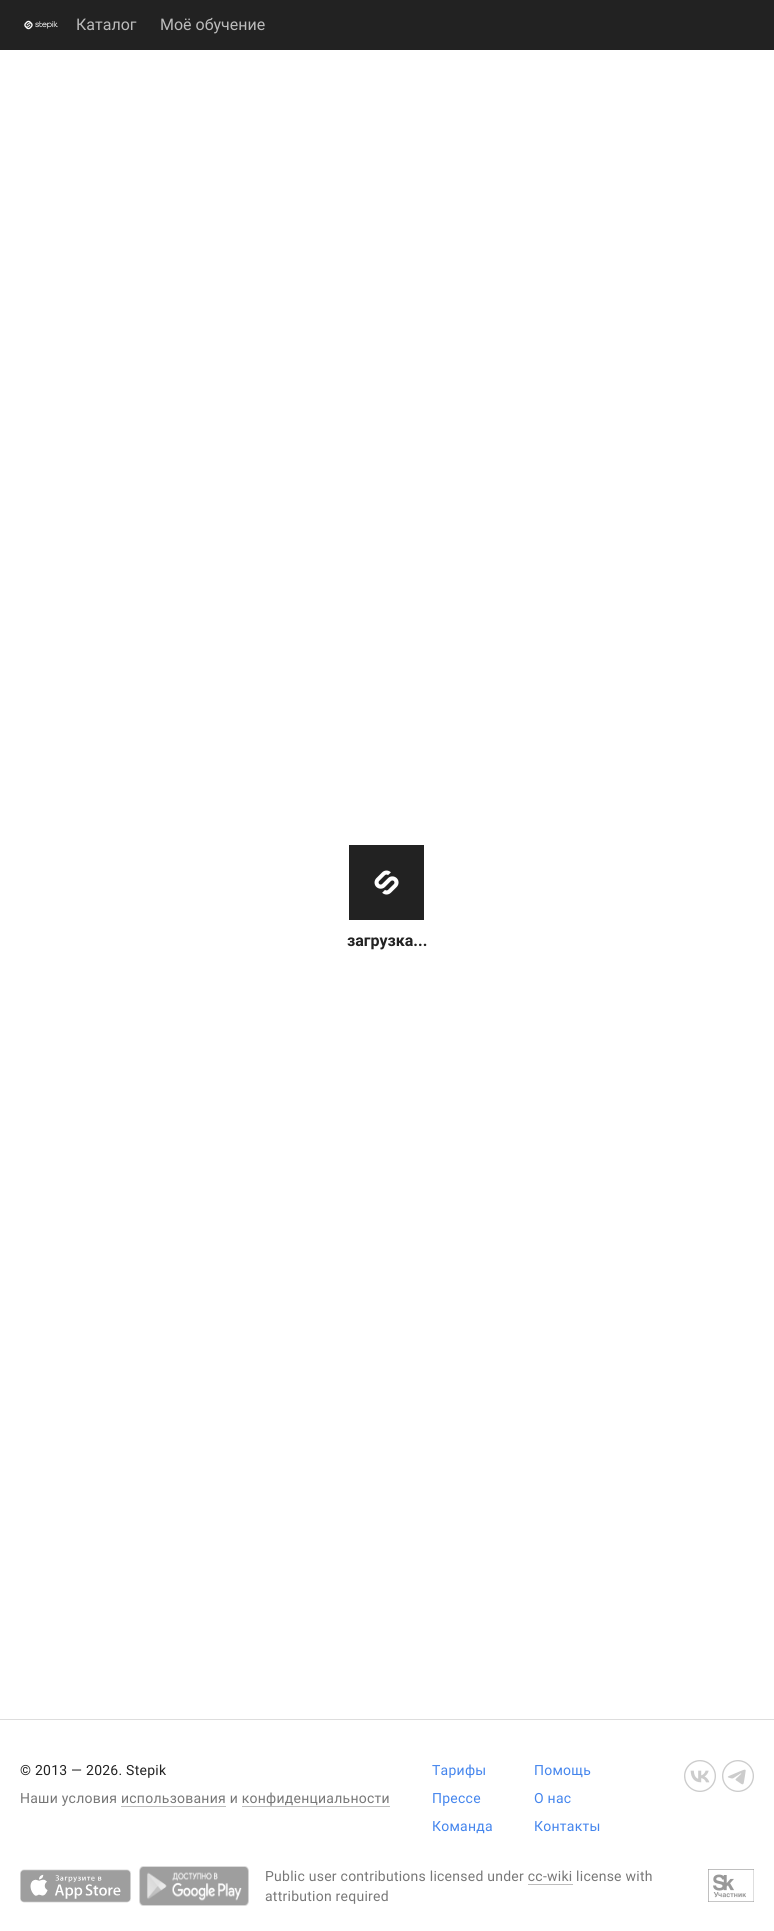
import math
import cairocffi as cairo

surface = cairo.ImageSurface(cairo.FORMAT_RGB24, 774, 1931)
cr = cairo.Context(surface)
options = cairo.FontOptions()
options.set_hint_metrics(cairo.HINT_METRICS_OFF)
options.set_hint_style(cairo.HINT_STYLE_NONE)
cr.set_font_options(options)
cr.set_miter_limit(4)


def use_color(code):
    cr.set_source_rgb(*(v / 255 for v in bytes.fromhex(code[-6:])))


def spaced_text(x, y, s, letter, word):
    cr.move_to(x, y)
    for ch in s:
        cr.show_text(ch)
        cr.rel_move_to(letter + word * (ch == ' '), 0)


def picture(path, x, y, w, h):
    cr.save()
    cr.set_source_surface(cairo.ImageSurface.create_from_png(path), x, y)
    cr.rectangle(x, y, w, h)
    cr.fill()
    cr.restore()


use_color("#ffffff")
cr.paint()
use_color("#222222")
cr.rectangle(0, 0, 774, 50)
cr.fill()
picture("img1.png", 24, 20, 34, 10)
cr.select_font_face("Roboto")
cr.set_font_size(16)
use_color("#bbbbbb")
cr.move_to(76, 30)
cr.show_text("Каталог")
cr.move_to(160, 30)
cr.show_text("Моё обучение")
use_color("#222222")
cr.rectangle(349, 845, 75, 75)
cr.fill()
picture("img2.png", 374, 870, 25, 25)
cr.select_font_face("Roboto", cairo.FONT_SLANT_NORMAL, cairo.FONT_WEIGHT_BOLD)
cr.move_to(347, 946)
cr.show_text("загрузка...")
use_color("#dddddd")
cr.rectangle(0, 1719, 774, 1)
cr.fill()
cr.select_font_face("Roboto")
cr.set_font_size(14)
use_color("#222222")
spaced_text(20, 1775, "© 2013 — 2026. Stepik", 0.25, 0)
use_color("#777777")
spaced_text(20, 1803, "Наши условия использования и конфиденциальности", 0.25, 0)
use_color("#bdbdbd")
cr.rectangle(121, 1806, 105, 1)
cr.fill()
cr.rectangle(242, 1806, 148, 1)
cr.fill()
use_color("#4485ed")
spaced_text(432, 1775, "Тарифы", 0.25, 0)
spaced_text(432, 1803, "Прессе", 0.25, 0)
spaced_text(432, 1831, "Команда", 0.25, 0)
spaced_text(534, 1775, "Помощь", 0.25, 0)
spaced_text(534, 1803, "О нас", 0.25, 0)
spaced_text(534, 1831, "Контакты", 0.25, 0)
picture("img3.png", 684, 1760, 32, 32)
picture("img4.png", 722, 1760, 32, 32)
picture("img5.png", 20, 1869, 111, 34)
picture("img6.png", 139, 1866, 110, 40)
use_color("#777777")
spaced_text(265, 1881, "Public user contributions licensed under cc-wiki license with", 0.25, 0)
use_color("#bdbdbd")
cr.rectangle(528, 1884, 45, 1)
cr.fill()
use_color("#777777")
spaced_text(265, 1901, "attribution required", 0.25, 0)
picture("img7.png", 708, 1869, 46, 33)
surface.write_to_png("result.png")
